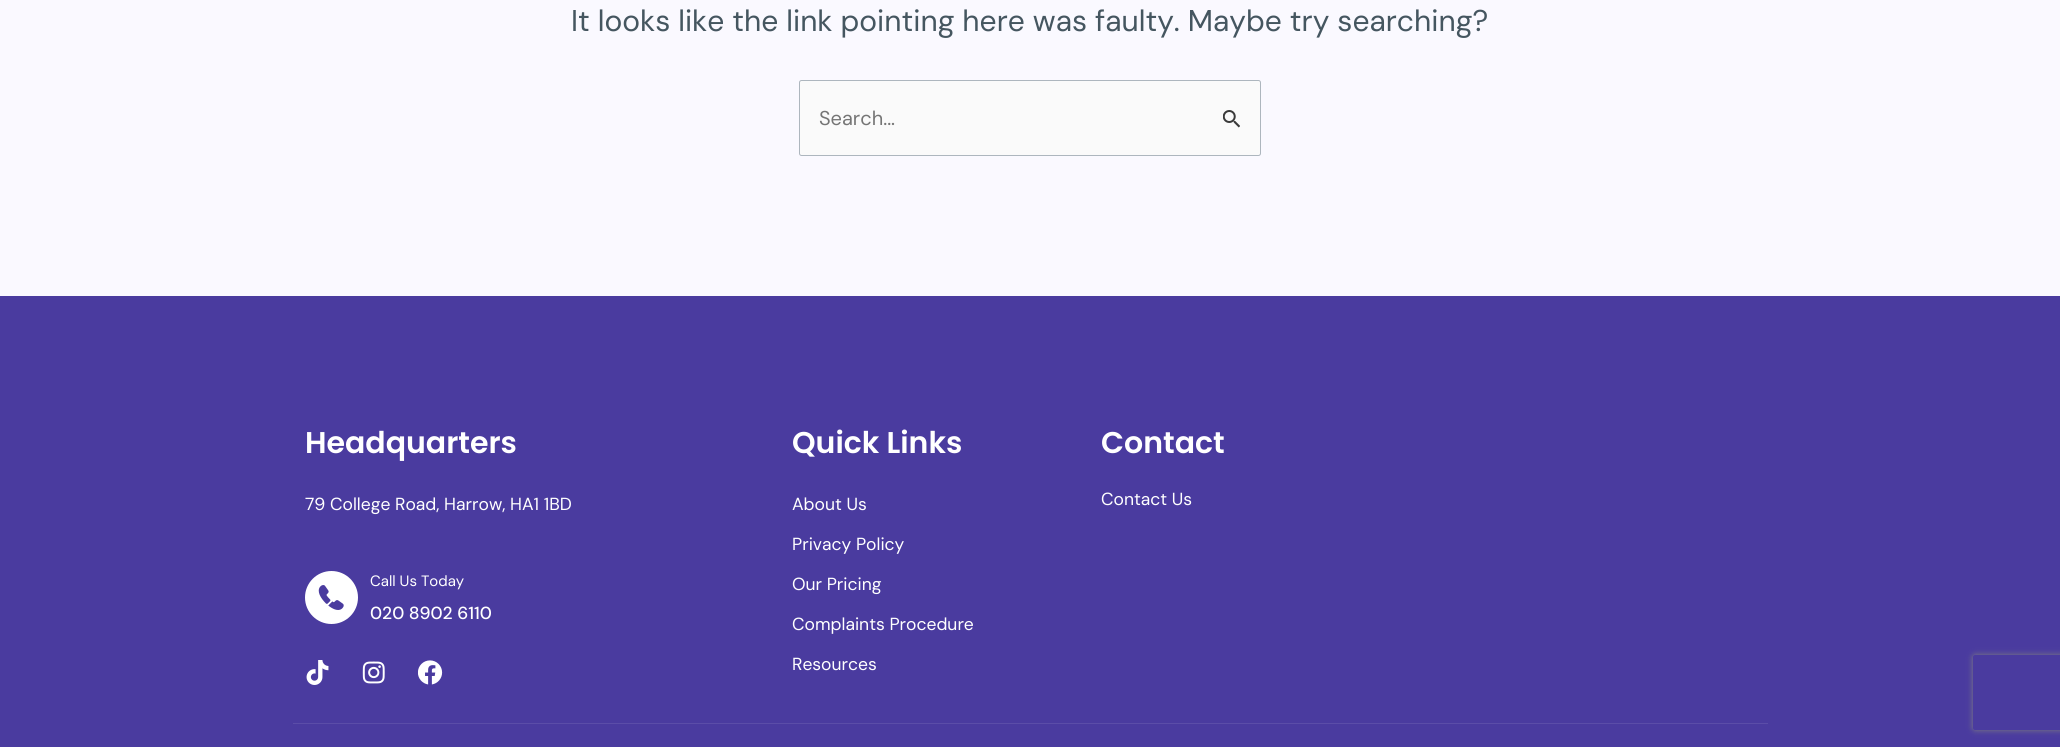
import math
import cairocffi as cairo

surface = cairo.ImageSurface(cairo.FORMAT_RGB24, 2060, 747)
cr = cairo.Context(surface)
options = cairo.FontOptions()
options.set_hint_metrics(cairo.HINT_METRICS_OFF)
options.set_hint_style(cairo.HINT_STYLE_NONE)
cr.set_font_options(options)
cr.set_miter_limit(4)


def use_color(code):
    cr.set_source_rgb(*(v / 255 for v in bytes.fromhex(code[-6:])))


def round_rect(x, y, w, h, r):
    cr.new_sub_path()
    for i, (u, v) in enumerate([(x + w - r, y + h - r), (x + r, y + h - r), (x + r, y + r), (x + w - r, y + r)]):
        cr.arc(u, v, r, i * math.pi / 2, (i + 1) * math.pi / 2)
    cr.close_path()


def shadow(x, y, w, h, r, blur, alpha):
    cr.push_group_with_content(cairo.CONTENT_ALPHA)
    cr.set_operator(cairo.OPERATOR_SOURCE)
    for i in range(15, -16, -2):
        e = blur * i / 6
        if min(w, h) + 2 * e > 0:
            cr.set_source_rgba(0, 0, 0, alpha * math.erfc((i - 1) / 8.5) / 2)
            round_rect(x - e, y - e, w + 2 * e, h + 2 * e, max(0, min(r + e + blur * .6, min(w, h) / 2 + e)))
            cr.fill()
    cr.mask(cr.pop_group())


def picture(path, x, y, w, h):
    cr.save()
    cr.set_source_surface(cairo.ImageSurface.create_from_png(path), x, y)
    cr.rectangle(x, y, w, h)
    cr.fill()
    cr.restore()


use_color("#faf9ff")
cr.paint()
cr.select_font_face("DM Sans")
cr.set_font_size(30)
use_color("#455660")
cr.move_to(571, 31)
cr.show_text("It looks like the link pointing here was faulty. Maybe try searching?")
use_color("#fafafa")
round_rect(799.5, 80.5, 461, 75, 2)
cr.fill_preserve()
use_color("#adb6be")
cr.set_line_width(1)
cr.stroke()
cr.set_font_size(20)
use_color("#757575")
cr.move_to(819, 125)
cr.show_text("Search...")
picture("img1.png", 1223, 110, 17, 18)
use_color("#4a3b9f")
cr.rectangle(0, 296, 2060, 451)
cr.fill()
cr.select_font_face("Poppins SemiBold")
cr.set_font_size(30)
use_color("#ffffff")
cr.move_to(305, 453)
cr.show_text("Headquarters")
cr.select_font_face("DM Sans")
cr.set_font_size(17.5)
cr.move_to(305, 510)
cr.show_text("79 College Road, Harrow, HA1 1BD")
picture("img2.png", 305, 571, 53, 53)
cr.set_font_size(15)
cr.move_to(370, 586)
cr.show_text("Call Us Today")
cr.select_font_face("DM Sans Medium")
cr.set_font_size(17.5)
cr.move_to(370, 619)
cr.show_text("020 8902 6110")
picture("img3.png", 306, 660, 23, 25)
picture("img4.png", 362, 661, 23, 23)
picture("img5.png", 418, 660, 25, 25)
cr.select_font_face("Poppins SemiBold")
cr.set_font_size(30)
cr.move_to(792, 453)
cr.show_text("Quick Links")
cr.select_font_face("DM Sans")
cr.set_font_size(17.5)
cr.move_to(792, 510)
cr.show_text("About Us")
cr.move_to(792, 550)
cr.show_text("Privacy Policy")
cr.move_to(792, 590)
cr.show_text("Our Pricing")
cr.move_to(792, 630)
cr.show_text("Complaints Procedure")
cr.move_to(792, 670)
cr.show_text("Resources")
cr.select_font_face("Poppins SemiBold")
cr.set_font_size(30)
cr.move_to(1101, 453)
cr.show_text("Contact")
cr.select_font_face("DM Sans")
cr.set_font_size(17.5)
cr.move_to(1101, 505)
cr.show_text("Contact Us")
use_color("#5b4da8")
cr.rectangle(293, 723, 1475, 1)
cr.fill()
cr.save()
cr.set_fill_rule(cairo.FILL_RULE_EVEN_ODD)
cr.new_path()
cr.move_to(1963, 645)
cr.line_to(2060, 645)
cr.line_to(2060, 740)
cr.line_to(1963, 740)
cr.close_path()
cr.move_to(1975.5, 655)
cr.line_to(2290.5, 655)
cr.curve_to(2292, 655, 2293, 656, 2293, 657.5)
cr.line_to(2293, 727.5)
cr.curve_to(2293, 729, 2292, 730, 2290.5, 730)
cr.line_to(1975.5, 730)
cr.curve_to(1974, 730, 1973, 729, 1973, 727.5)
cr.line_to(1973, 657.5)
cr.curve_to(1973, 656, 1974, 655, 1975.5, 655)
cr.close_path()
cr.clip()
use_color("#808080")
shadow(1973, 655, 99, 75, 2.5, 3, 1)
cr.restore()
surface.write_to_png("result.png")
